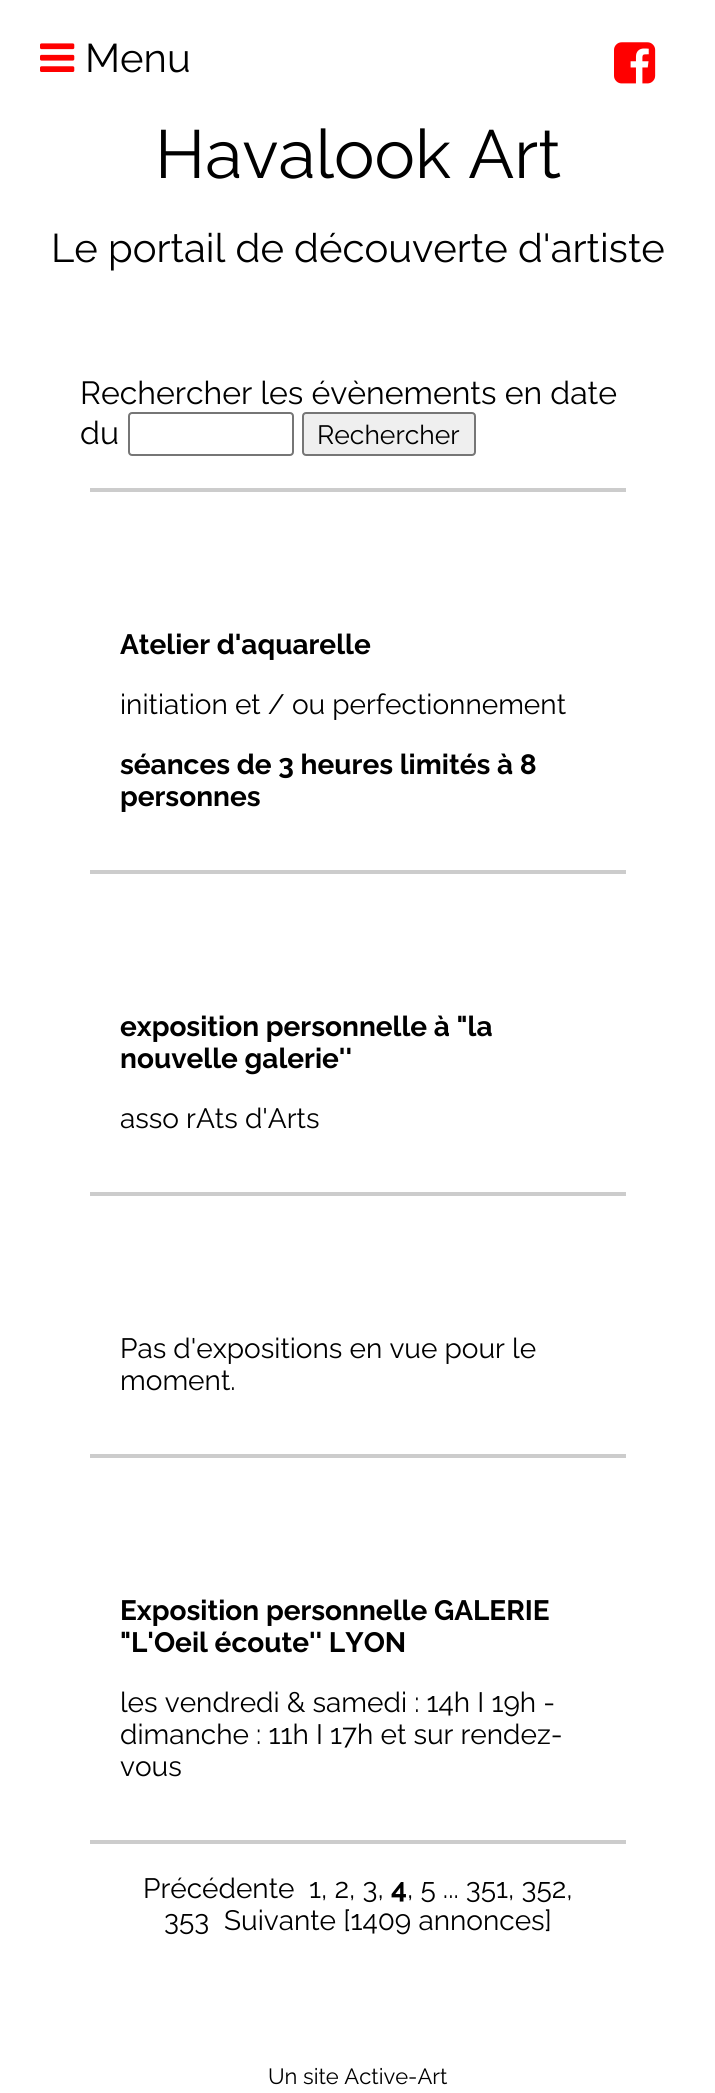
import math
import cairocffi as cairo

surface = cairo.ImageSurface(cairo.FORMAT_RGB24, 715, 2093)
cr = cairo.Context(surface)
options = cairo.FontOptions()
options.set_hint_metrics(cairo.HINT_METRICS_OFF)
options.set_hint_style(cairo.HINT_STYLE_NONE)
cr.set_font_options(options)
cr.set_miter_limit(4)


def use_color(code):
    cr.set_source_rgb(*(v / 255 for v in bytes.fromhex(code[-6:])))


def round_rect(x, y, w, h, r):
    cr.new_sub_path()
    for i, (u, v) in enumerate([(x + w - r, y + h - r), (x + r, y + h - r), (x + r, y + r), (x + w - r, y + r)]):
        cr.arc(u, v, r, i * math.pi / 2, (i + 1) * math.pi / 2)
    cr.close_path()


def picture(path, x, y, w, h):
    cr.save()
    cr.set_source_surface(cairo.ImageSurface.create_from_png(path), x, y)
    cr.rectangle(x, y, w, h)
    cr.fill()
    cr.restore()


use_color("#ffffff")
cr.paint()
picture("img1.png", 40, 43, 35, 29)
cr.select_font_face("Raleway")
cr.set_font_size(40)
use_color("#000000")
cr.move_to(85, 72)
cr.show_text("Menu")
picture("img2.png", 614, 42, 42, 42)
cr.set_font_size(68)
cr.move_to(155, 178)
cr.show_text("Havalook Art")
cr.set_font_size(40)
cr.move_to(51, 262)
cr.show_text("Le portail de découverte d'artiste")
cr.set_font_size(32)
cr.move_to(80, 404)
cr.show_text("Rechercher les évènements en date")
cr.move_to(80, 444)
cr.show_text("du")
round_rect(129, 413, 164, 42, 3)
use_color("#767676")
cr.stroke()
use_color("#efefef")
round_rect(303, 413, 172, 42, 3)
cr.fill_preserve()
use_color("#767676")
cr.stroke()
cr.set_font_size(26.5)
use_color("#000000")
cr.move_to(317, 444)
cr.show_text("Rechercher")
use_color("#cccccc")
cr.rectangle(90, 488, 536, 4)
cr.fill()
cr.rectangle(90, 870, 536, 4)
cr.fill()
cr.select_font_face("Raleway", cairo.FONT_SLANT_NORMAL, cairo.FONT_WEIGHT_BOLD)
cr.set_font_size(28)
use_color("#000000")
cr.move_to(120, 654)
cr.show_text("Atelier d'aquarelle")
cr.select_font_face("Raleway")
cr.move_to(120, 714)
cr.show_text("initiation et / ou perfectionnement")
cr.select_font_face("Raleway", cairo.FONT_SLANT_NORMAL, cairo.FONT_WEIGHT_BOLD)
cr.move_to(120, 774)
cr.show_text("séances de 3 heures limités à 8")
cr.move_to(120, 806)
cr.show_text("personnes")
use_color("#cccccc")
cr.rectangle(90, 1192, 536, 4)
cr.fill()
use_color("#000000")
cr.move_to(120, 1036)
cr.show_text("exposition personnelle à \"la")
cr.move_to(120, 1068)
cr.show_text("nouvelle galerie''")
cr.select_font_face("Raleway")
cr.move_to(120, 1128)
cr.show_text("asso rAts d'Arts")
use_color("#cccccc")
cr.rectangle(90, 1454, 536, 4)
cr.fill()
use_color("#000000")
cr.move_to(120, 1358)
cr.show_text("Pas d'expositions en vue pour le")
cr.move_to(120, 1390)
cr.show_text("moment.")
use_color("#cccccc")
cr.rectangle(90, 1840, 536, 4)
cr.fill()
cr.select_font_face("Raleway", cairo.FONT_SLANT_NORMAL, cairo.FONT_WEIGHT_BOLD)
use_color("#000000")
cr.move_to(120, 1620)
cr.show_text("Exposition personnelle GALERIE")
cr.move_to(120, 1652)
cr.show_text("\"L'Oeil écoute'' LYON")
cr.select_font_face("Raleway")
cr.move_to(120, 1712)
cr.show_text("les vendredi & samedi : 14h I 19h -")
cr.move_to(120, 1744)
cr.show_text("dimanche : 11h I 17h et sur rendez-")
cr.move_to(120, 1776)
cr.show_text("vous")
cr.move_to(143, 1898)
cr.show_text("Précédente")
cr.move_to(309, 1898)
cr.show_text("1, 2, 3,")
cr.select_font_face("Raleway", cairo.FONT_SLANT_NORMAL, cairo.FONT_WEIGHT_BOLD)
cr.move_to(391, 1898)
cr.show_text("4")
cr.select_font_face("Raleway")
cr.move_to(407, 1898)
cr.show_text(", 5 ... 351, 352,")
cr.move_to(164, 1930)
cr.show_text("353")
cr.move_to(224, 1930)
cr.show_text("Suivante [1409 annonces]")
cr.set_font_size(22)
cr.move_to(268, 2084)
cr.show_text("Un site Active-Art")
surface.write_to_png("result.png")
